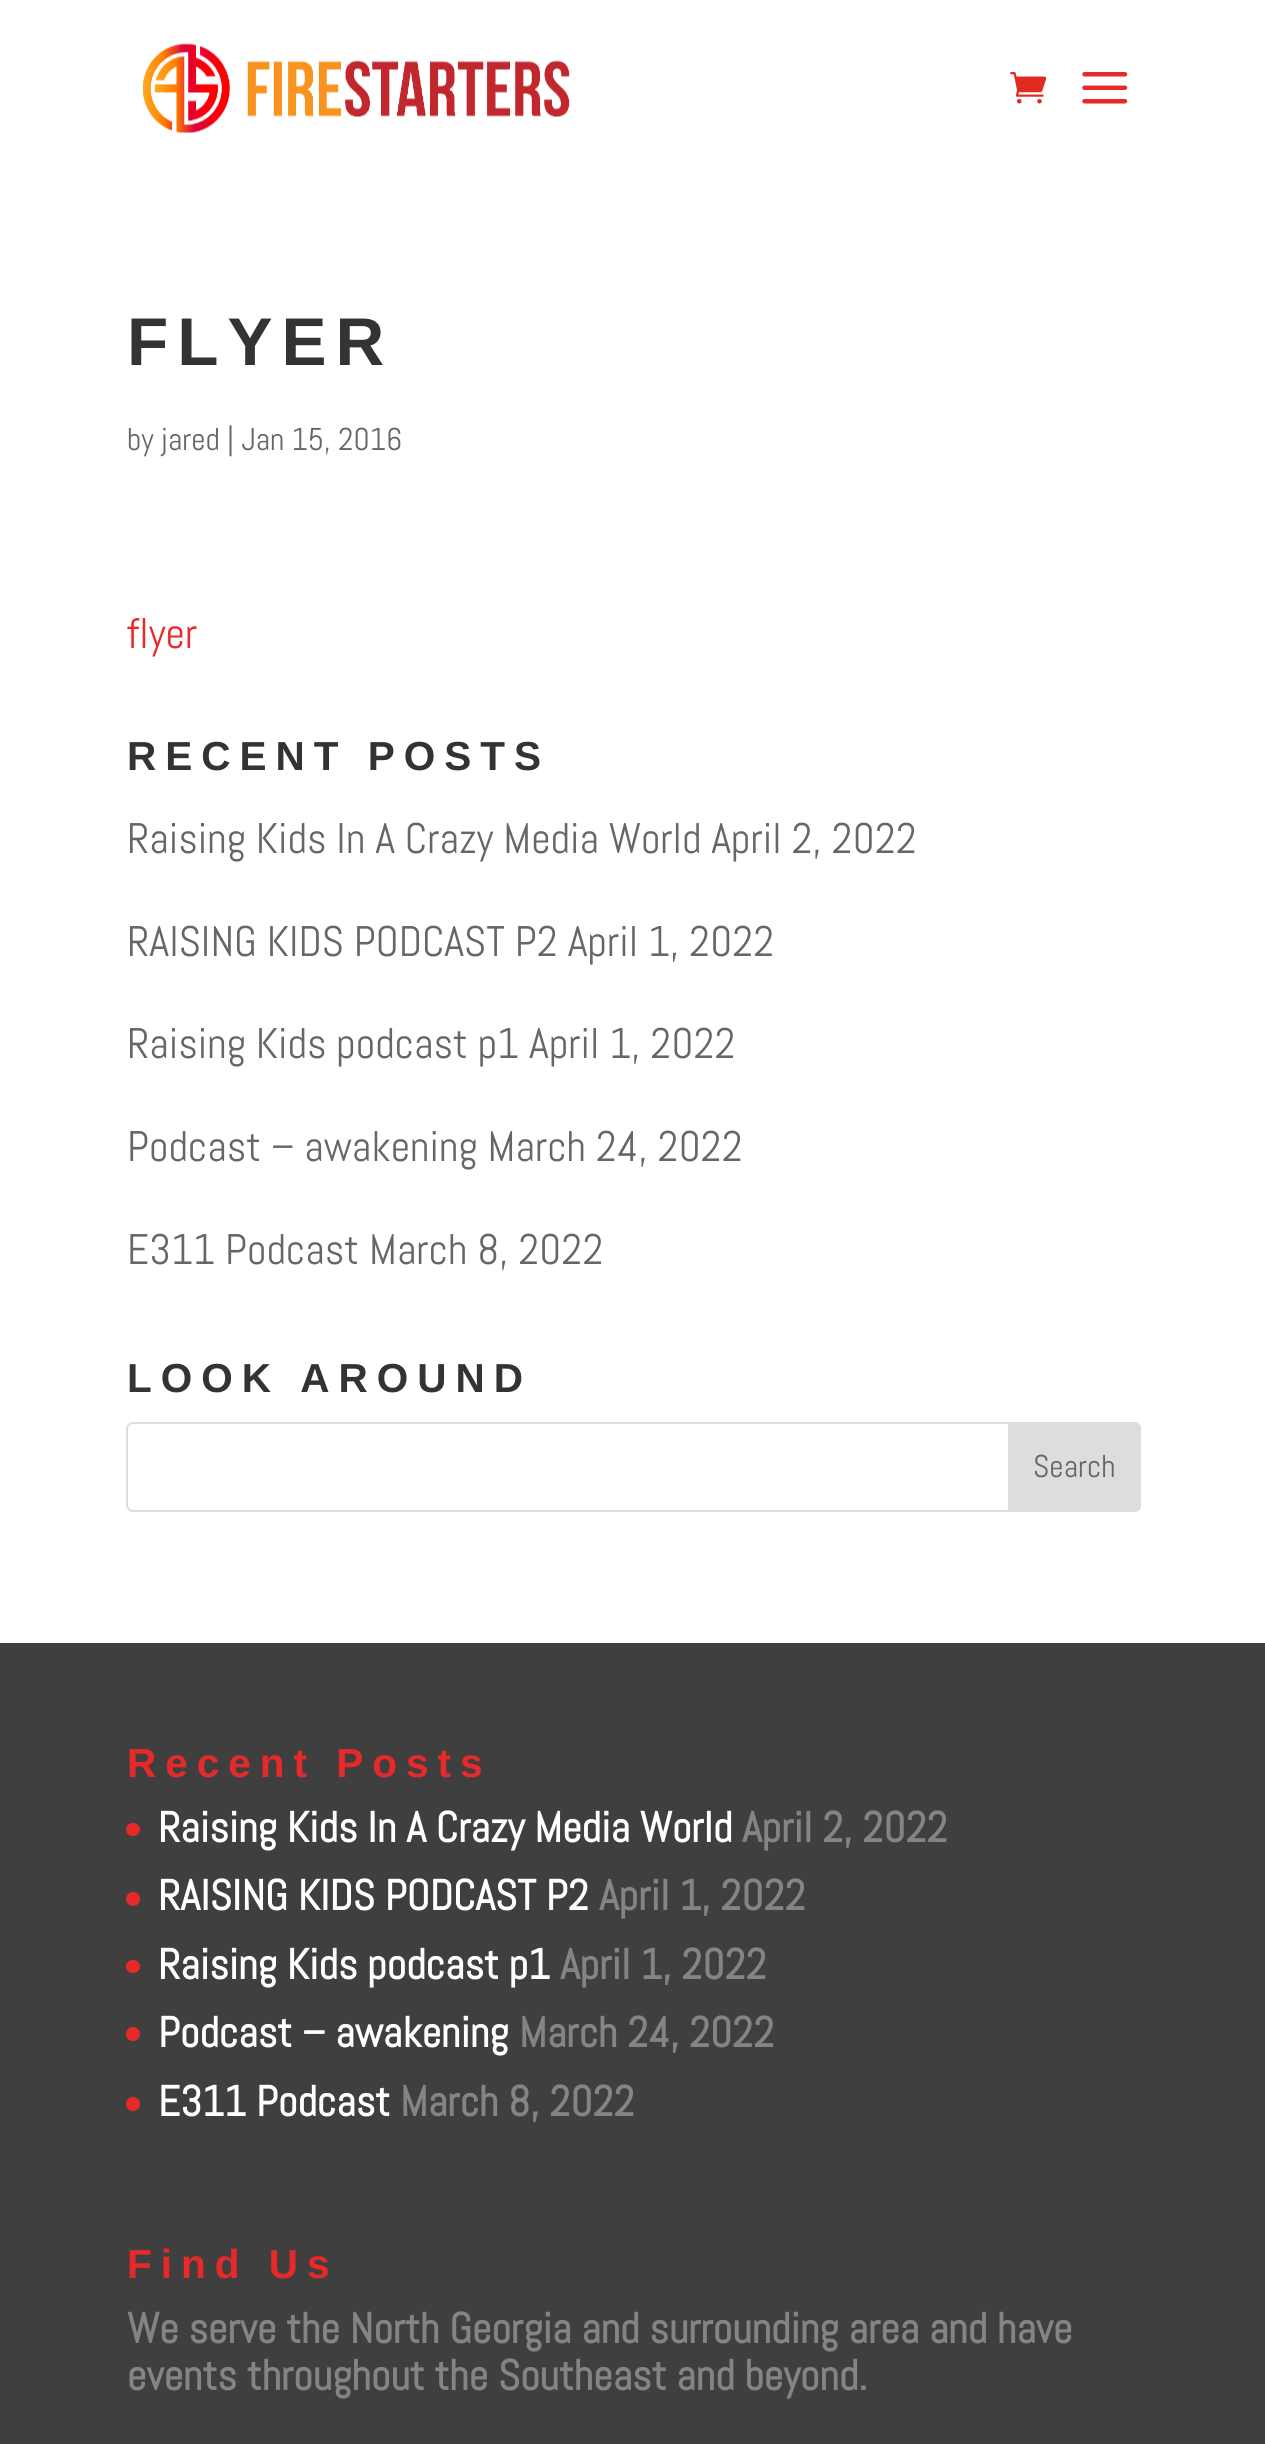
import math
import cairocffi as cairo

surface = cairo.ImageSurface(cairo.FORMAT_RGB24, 1265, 2444)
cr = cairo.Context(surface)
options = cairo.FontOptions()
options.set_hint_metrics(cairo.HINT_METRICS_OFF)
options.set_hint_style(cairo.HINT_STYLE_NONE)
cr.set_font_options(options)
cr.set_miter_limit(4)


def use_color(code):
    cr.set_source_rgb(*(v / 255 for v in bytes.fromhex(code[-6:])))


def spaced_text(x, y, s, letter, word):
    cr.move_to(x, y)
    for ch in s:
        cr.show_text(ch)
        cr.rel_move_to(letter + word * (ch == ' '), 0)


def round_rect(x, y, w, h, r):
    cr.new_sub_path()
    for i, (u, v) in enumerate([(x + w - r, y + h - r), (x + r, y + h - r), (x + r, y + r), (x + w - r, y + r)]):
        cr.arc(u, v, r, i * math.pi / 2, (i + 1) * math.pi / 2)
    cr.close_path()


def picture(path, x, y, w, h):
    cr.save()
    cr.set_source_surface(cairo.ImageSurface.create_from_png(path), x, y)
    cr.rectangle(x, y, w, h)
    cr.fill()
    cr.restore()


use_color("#ffffff")
cr.paint()
picture("img1.png", 143, 43, 427, 91)
picture("img2.png", 1010, 72, 37, 32)
picture("img3.png", 1082, 72, 46, 32)
cr.select_font_face("Arimo", cairo.FONT_SLANT_NORMAL, cairo.FONT_WEIGHT_BOLD)
cr.set_font_size(67.5)
use_color("#333333")
spaced_text(127, 365, "FLYER", 9, 0)
cr.select_font_face("Abel")
cr.set_font_size(31.5)
use_color("#666666")
cr.move_to(127, 450)
cr.show_text("by jared | Jan 15, 2016")
cr.set_font_size(42.75)
use_color("#e82929")
cr.move_to(127, 648)
cr.show_text("flyer")
cr.select_font_face("Arimo", cairo.FONT_SLANT_NORMAL, cairo.FONT_WEIGHT_BOLD)
cr.set_font_size(40.5)
use_color("#333333")
spaced_text(127, 770, "RECENT POSTS", 9, 0)
cr.select_font_face("Abel")
cr.set_font_size(42.75)
use_color("#666666")
cr.move_to(127, 853)
cr.show_text("Raising Kids In A Crazy Media World April 2, 2022")
cr.move_to(127, 956)
cr.show_text("RAISING KIDS PODCAST P2 April 1, 2022")
cr.move_to(127, 1058)
cr.show_text("Raising Kids podcast p1 April 1, 2022")
cr.move_to(127, 1161)
cr.show_text("Podcast – awakening March 24, 2022")
cr.move_to(127, 1264)
cr.show_text("E311 Podcast March 8, 2022")
cr.select_font_face("Arimo", cairo.FONT_SLANT_NORMAL, cairo.FONT_WEIGHT_BOLD)
cr.set_font_size(40.5)
use_color("#333333")
spaced_text(127, 1392, "LOOK AROUND", 9, 0)
round_rect(127, 1423, 1013, 88, 6)
use_color("#dddddd")
cr.stroke()
cr.new_path()
cr.move_to(1009, 1423)
cr.line_to(1134, 1423)
cr.curve_to(1137.5, 1423, 1140, 1425.5, 1140, 1429)
cr.line_to(1140, 1505)
cr.curve_to(1140, 1508.5, 1137.5, 1511, 1134, 1511)
cr.line_to(1009, 1511)
cr.close_path()
cr.fill_preserve()
cr.stroke()
cr.select_font_face("Abel")
cr.set_font_size(31.5)
use_color("#666666")
cr.move_to(1033, 1477)
cr.show_text("Search")
use_color("#3f3f3f")
cr.rectangle(0, 1643, 1265, 801)
cr.fill()
cr.select_font_face("Arimo", cairo.FONT_SLANT_NORMAL, cairo.FONT_WEIGHT_BOLD)
cr.set_font_size(40.5)
use_color("#e82929")
spaced_text(127, 1777, "Recent Posts", 9, 0)
round_rect(126, 1823, 14, 13, 6.5)
cr.fill()
cr.select_font_face("Abel", cairo.FONT_SLANT_NORMAL, cairo.FONT_WEIGHT_BOLD)
cr.set_font_size(42.75)
use_color("#ffffff")
cr.move_to(158, 1842)
cr.show_text("Raising Kids In A Crazy Media World")
use_color("#848484")
cr.move_to(742, 1842)
cr.show_text("April 2, 2022")
use_color("#e82929")
cr.new_path()
cr.arc(133, 1899, 7, 0, 2 * math.pi)
cr.fill()
use_color("#ffffff")
cr.move_to(158, 1910)
cr.show_text("RAISING KIDS PODCAST P2")
use_color("#848484")
cr.move_to(599, 1910)
cr.show_text("April 1, 2022")
use_color("#e82929")
round_rect(126, 1960, 14, 13, 6.5)
cr.fill()
use_color("#ffffff")
cr.move_to(158, 1979)
cr.show_text("Raising Kids podcast p1")
use_color("#848484")
cr.move_to(560, 1979)
cr.show_text("April 1, 2022")
use_color("#e82929")
cr.new_path()
cr.arc(133, 2034, 7, 0, 2 * math.pi)
cr.fill()
use_color("#ffffff")
cr.move_to(158, 2047)
cr.show_text("Podcast – awakening")
use_color("#848484")
cr.move_to(519, 2047)
cr.show_text("March 24, 2022")
use_color("#e82929")
cr.new_path()
cr.arc(133, 2104, 7, 0, 2 * math.pi)
cr.fill()
use_color("#ffffff")
cr.move_to(158, 2116)
cr.show_text("E311 Podcast")
use_color("#848484")
cr.move_to(400, 2116)
cr.show_text("March 8, 2022")
cr.select_font_face("Arimo", cairo.FONT_SLANT_NORMAL, cairo.FONT_WEIGHT_BOLD)
cr.set_font_size(40.5)
use_color("#e82929")
spaced_text(127, 2278, "Find Us", 9, 0)
cr.select_font_face("Abel", cairo.FONT_SLANT_NORMAL, cairo.FONT_WEIGHT_BOLD)
cr.set_font_size(42.75)
use_color("#848484")
cr.move_to(127, 2343)
cr.show_text("We serve the North Georgia and surrounding area and have")
cr.move_to(127, 2390)
cr.show_text("events throughout the Southeast and beyond.")
surface.write_to_png("result.png")
